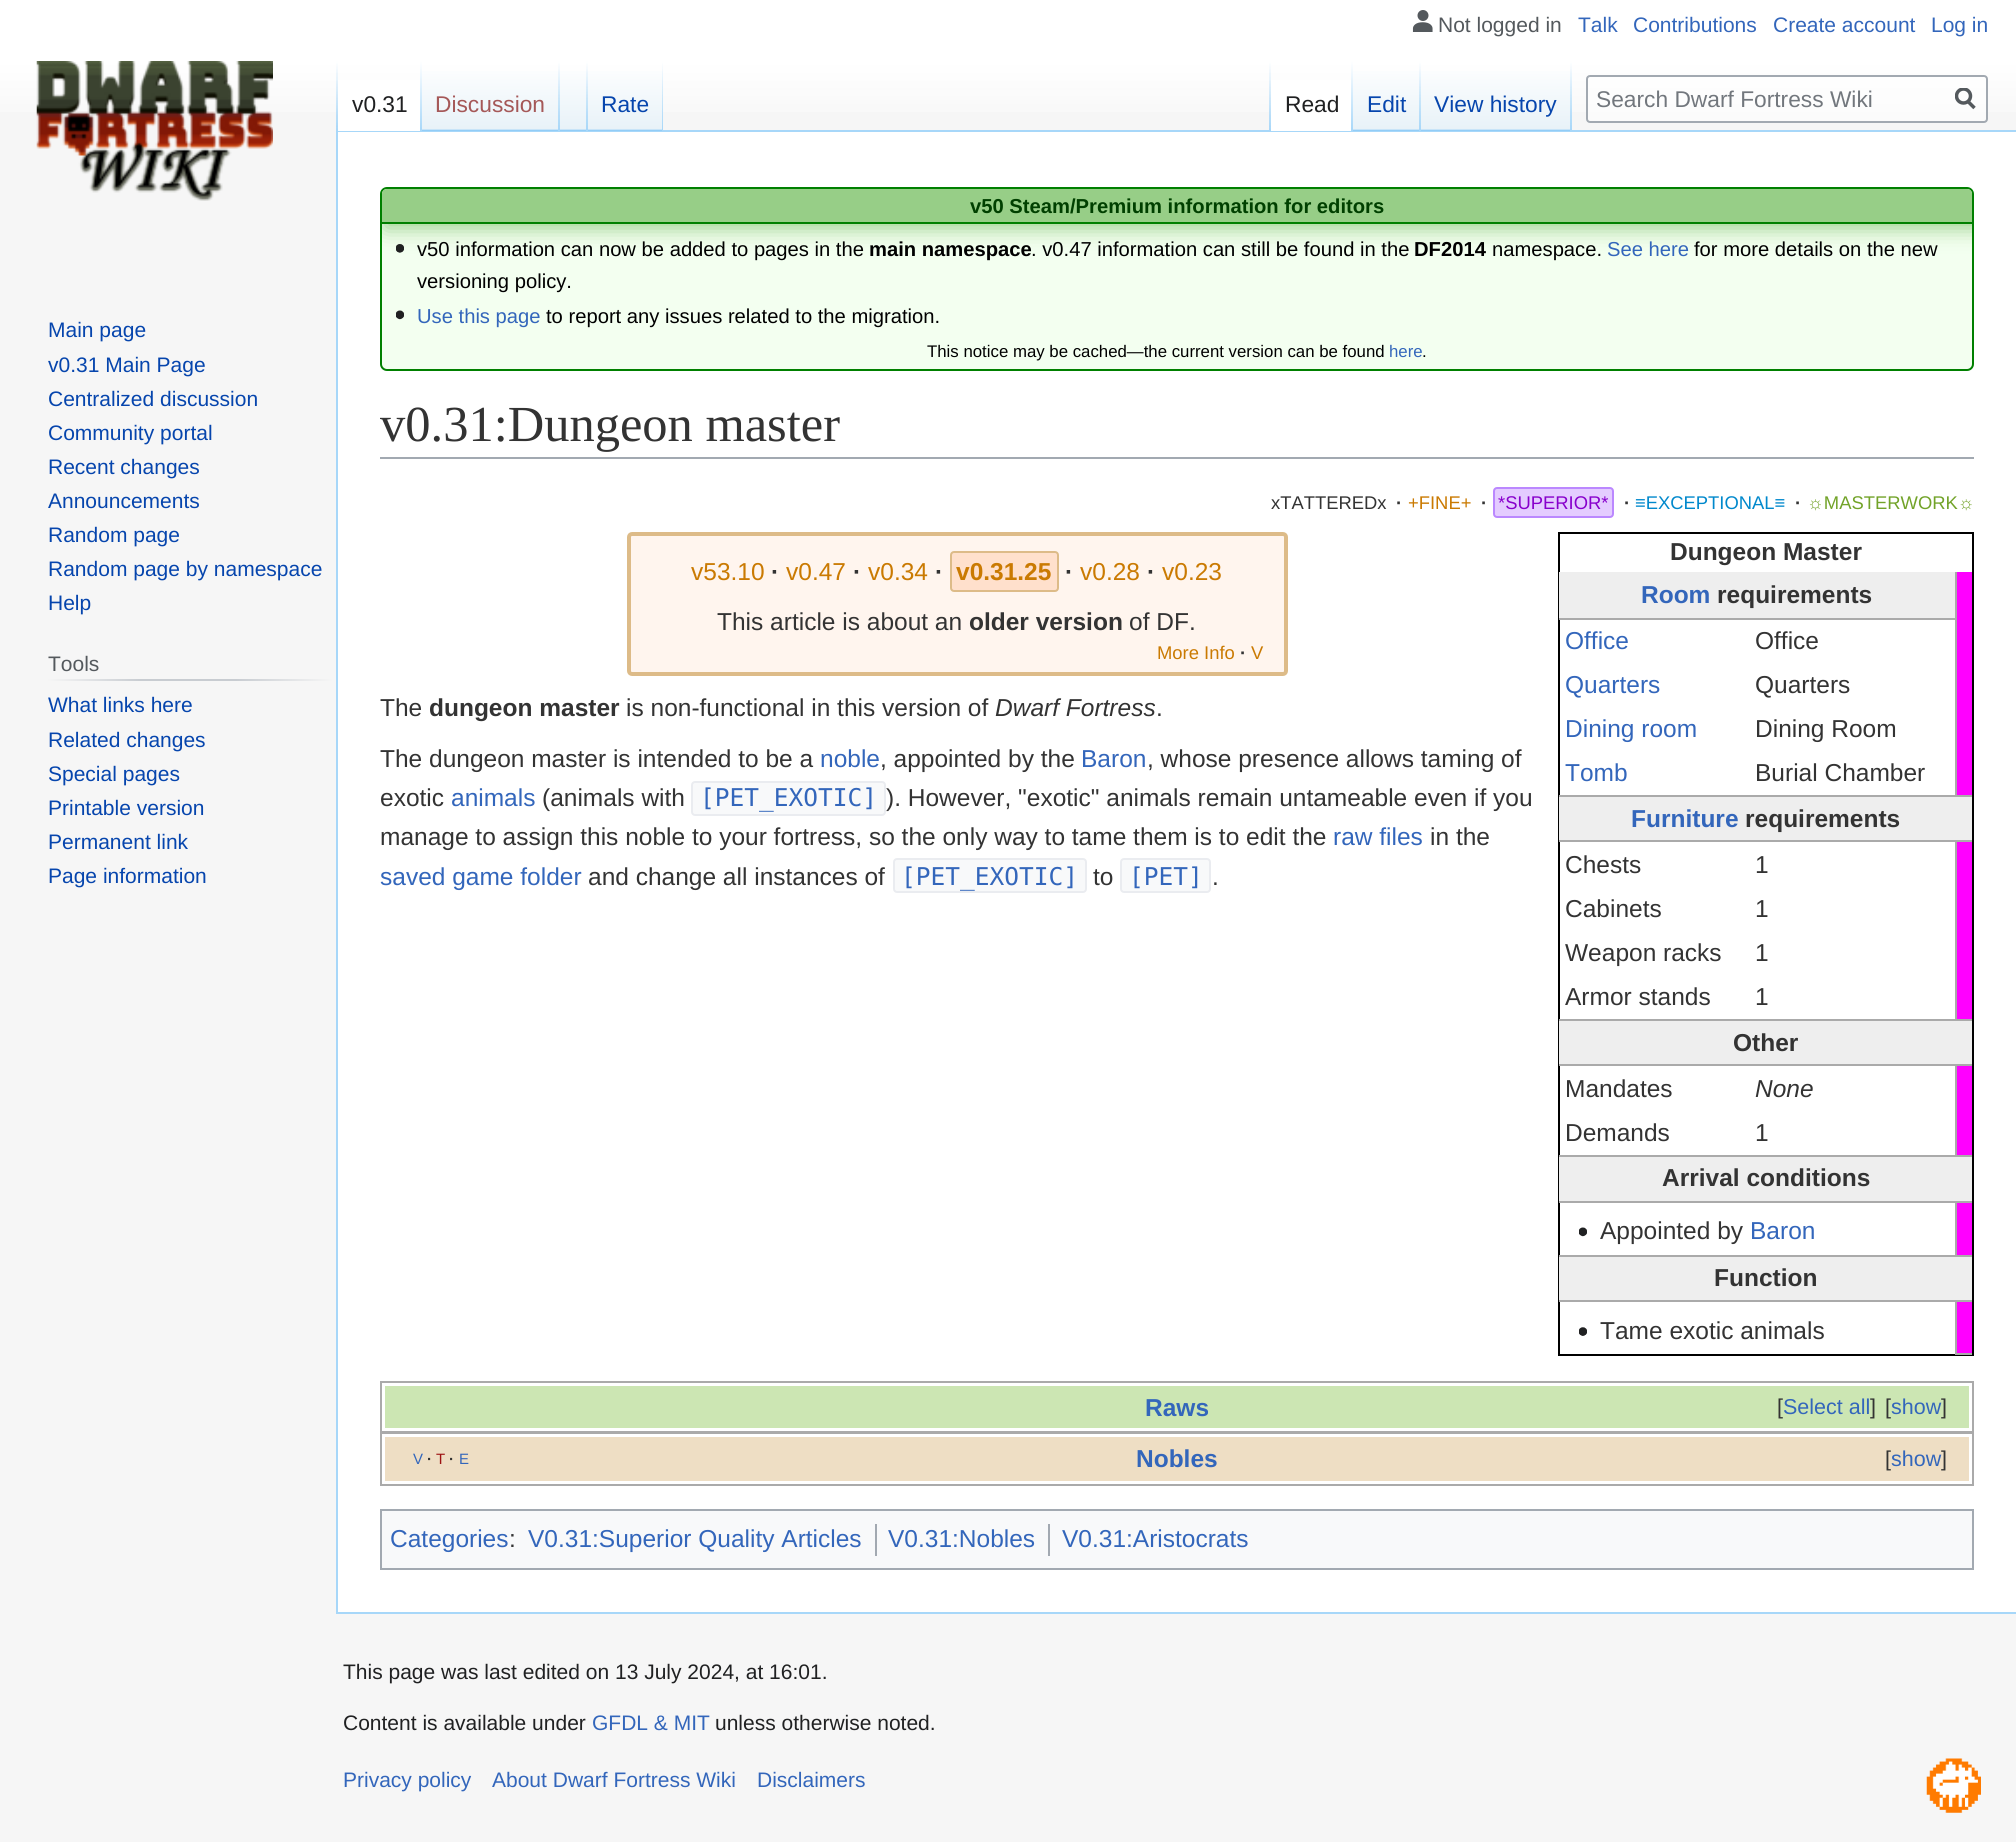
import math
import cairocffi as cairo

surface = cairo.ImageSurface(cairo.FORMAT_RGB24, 2016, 1842)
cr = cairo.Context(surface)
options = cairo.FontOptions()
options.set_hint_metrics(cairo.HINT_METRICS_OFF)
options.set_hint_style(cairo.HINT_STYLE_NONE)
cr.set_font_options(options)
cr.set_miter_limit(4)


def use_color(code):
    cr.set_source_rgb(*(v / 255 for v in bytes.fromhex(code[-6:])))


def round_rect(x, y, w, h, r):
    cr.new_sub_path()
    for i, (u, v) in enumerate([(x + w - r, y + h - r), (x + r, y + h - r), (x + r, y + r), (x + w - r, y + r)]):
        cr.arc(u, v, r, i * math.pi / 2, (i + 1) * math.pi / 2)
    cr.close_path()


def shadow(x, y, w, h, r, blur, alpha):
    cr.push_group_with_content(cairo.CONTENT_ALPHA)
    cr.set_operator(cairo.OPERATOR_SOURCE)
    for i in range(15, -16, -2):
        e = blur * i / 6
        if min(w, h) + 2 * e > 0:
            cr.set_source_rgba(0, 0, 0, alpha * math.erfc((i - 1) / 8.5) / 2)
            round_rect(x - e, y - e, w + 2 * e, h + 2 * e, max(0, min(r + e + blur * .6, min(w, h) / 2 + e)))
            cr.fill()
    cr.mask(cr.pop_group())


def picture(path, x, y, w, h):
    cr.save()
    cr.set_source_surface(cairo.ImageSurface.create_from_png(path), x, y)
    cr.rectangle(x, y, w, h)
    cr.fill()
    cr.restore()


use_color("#f6f6f6")
cr.paint()
gradient = cairo.LinearGradient(1008, -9, 1008, 131)
gradient.add_color_stop_rgba(0.5, 1, 1, 1, 1)
gradient.add_color_stop_rgba(1, 0.965, 0.965, 0.965, 1)
cr.set_source(gradient)
cr.rectangle(0, 0, 2016, 112)
cr.fill()
picture("img1.png", 1412, 10, 21, 22)
cr.select_font_face("Liberation Sans")
cr.set_font_size(21)
use_color("#54595d")
cr.move_to(1438, 32)
cr.show_text("Not logged in")
use_color("#3366bb")
cr.move_to(1578, 32)
cr.show_text("Talk")
cr.move_to(1633, 32)
cr.show_text("Contributions")
cr.move_to(1773, 32)
cr.show_text("Create account")
cr.move_to(1931, 32)
cr.show_text("Log in")
use_color("#a7d7f9")
cr.rectangle(336, 130, 1680, 2)
cr.fill()
cr.rectangle(336, 1612, 1680, 2)
cr.fill()
cr.rectangle(336, 130, 2, 1484)
cr.fill()
gradient = cairo.LinearGradient(337, 61, 337, 131)
gradient.add_color_stop_rgba(0, 0.655, 0.843, 0.976, 0)
gradient.add_color_stop_rgba(1, 0.655, 0.843, 0.976, 1)
cr.set_source(gradient)
cr.rectangle(336, 61, 2, 70)
cr.fill()
use_color("#ffffff")
cr.rectangle(338, 80, 82, 51)
cr.fill()
gradient = cairo.LinearGradient(421, 61, 421, 131)
gradient.add_color_stop_rgba(0, 1, 1, 1, 1)
gradient.add_color_stop_rgba(1, 0.655, 0.843, 0.976, 1)
cr.set_source(gradient)
cr.rectangle(420, 61, 2, 70)
cr.fill()
cr.set_font_size(22.75)
use_color("#202122")
cr.move_to(352, 112)
cr.show_text("v0.31")
gradient = cairo.LinearGradient(491, 131, 491, 61)
gradient.add_color_stop_rgba(0, 0.467, 0.757, 0.965, 1)
gradient.add_color_stop_rgba(0.03, 0.91, 0.949, 0.973, 1)
gradient.add_color_stop_rgba(1, 1, 1, 1, 1)
cr.set_source(gradient)
cr.rectangle(422, 71, 138, 60)
cr.fill()
gradient = cairo.LinearGradient(559, 61, 559, 131)
gradient.add_color_stop_rgba(0, 0.655, 0.843, 0.976, 0)
gradient.add_color_stop_rgba(1, 0.655, 0.843, 0.976, 1)
cr.set_source(gradient)
cr.rectangle(558, 61, 2, 70)
cr.fill()
use_color("#a55858")
cr.move_to(435, 112)
cr.show_text("Discussion")
gradient = cairo.LinearGradient(574, 131, 574, 61)
gradient.add_color_stop_rgba(0, 0.467, 0.757, 0.965, 1)
gradient.add_color_stop_rgba(0.03, 0.91, 0.949, 0.973, 1)
gradient.add_color_stop_rgba(1, 1, 1, 1, 1)
cr.set_source(gradient)
cr.rectangle(560, 71, 28, 60)
cr.fill()
gradient = cairo.LinearGradient(587, 61, 587, 131)
gradient.add_color_stop_rgba(0, 0.655, 0.843, 0.976, 0)
gradient.add_color_stop_rgba(1, 0.655, 0.843, 0.976, 1)
cr.set_source(gradient)
cr.rectangle(586, 61, 2, 70)
cr.fill()
gradient = cairo.LinearGradient(626, 131, 626, 61)
gradient.add_color_stop_rgba(0, 0.467, 0.757, 0.965, 1)
gradient.add_color_stop_rgba(0.03, 0.91, 0.949, 0.973, 1)
gradient.add_color_stop_rgba(1, 1, 1, 1, 1)
cr.set_source(gradient)
cr.rectangle(588, 71, 75, 60)
cr.fill()
gradient = cairo.LinearGradient(662, 61, 662, 131)
gradient.add_color_stop_rgba(0, 0.655, 0.843, 0.976, 0)
gradient.add_color_stop_rgba(1, 0.655, 0.843, 0.976, 1)
cr.set_source(gradient)
cr.rectangle(662, 61, 1, 70)
cr.fill()
use_color("#0645ad")
cr.move_to(601, 112)
cr.show_text("Rate")
gradient = cairo.LinearGradient(1270, 61, 1270, 131)
gradient.add_color_stop_rgba(0, 0.655, 0.843, 0.976, 0)
gradient.add_color_stop_rgba(1, 0.655, 0.843, 0.976, 1)
cr.set_source(gradient)
cr.rectangle(1269, 61, 2, 70)
cr.fill()
use_color("#ffffff")
cr.rectangle(1271, 80, 80, 51)
cr.fill()
gradient = cairo.LinearGradient(1352, 61, 1352, 131)
gradient.add_color_stop_rgba(0, 1, 1, 1, 1)
gradient.add_color_stop_rgba(1, 0.655, 0.843, 0.976, 1)
cr.set_source(gradient)
cr.rectangle(1351, 61, 2, 70)
cr.fill()
use_color("#202122")
cr.move_to(1285, 112)
cr.show_text("Read")
gradient = cairo.LinearGradient(1387, 131, 1387, 61)
gradient.add_color_stop_rgba(0, 0.467, 0.757, 0.965, 1)
gradient.add_color_stop_rgba(0.03, 0.91, 0.949, 0.973, 1)
gradient.add_color_stop_rgba(1, 1, 1, 1, 1)
cr.set_source(gradient)
cr.rectangle(1353, 71, 68, 60)
cr.fill()
gradient = cairo.LinearGradient(1420, 61, 1420, 131)
gradient.add_color_stop_rgba(0, 0.655, 0.843, 0.976, 0)
gradient.add_color_stop_rgba(1, 0.655, 0.843, 0.976, 1)
cr.set_source(gradient)
cr.rectangle(1419, 61, 2, 70)
cr.fill()
use_color("#0645ad")
cr.move_to(1367, 112)
cr.show_text("Edit")
gradient = cairo.LinearGradient(1496, 131, 1496, 61)
gradient.add_color_stop_rgba(0, 0.467, 0.757, 0.965, 1)
gradient.add_color_stop_rgba(0.03, 0.91, 0.949, 0.973, 1)
gradient.add_color_stop_rgba(1, 1, 1, 1, 1)
cr.set_source(gradient)
cr.rectangle(1421, 71, 151, 60)
cr.fill()
gradient = cairo.LinearGradient(1571, 61, 1571, 131)
gradient.add_color_stop_rgba(0, 0.655, 0.843, 0.976, 0)
gradient.add_color_stop_rgba(1, 0.655, 0.843, 0.976, 1)
cr.set_source(gradient)
cr.rectangle(1570, 61, 2, 70)
cr.fill()
use_color("#0645ad")
cr.move_to(1434, 112)
cr.show_text("View history")
cr.set_source_rgba(1, 1, 1, 0.5)
round_rect(1587, 76, 400, 46, 3)
cr.fill_preserve()
use_color("#a2a9b1")
cr.stroke()
use_color("#72777d")
cr.move_to(1596, 107)
cr.show_text("Search Dwarf Fortress Wiki")
cr.new_path()
cr.move_to(1974.5, 108)
cr.line_to(1967.5, 101)
use_color("#54595d")
cr.set_line_width(3.5)
cr.stroke()
cr.save()
cr.rectangle(1955, 88, 21, 22)
cr.clip()
cr.arc(1963.5, 96, 7, 0, 2 * math.pi)
cr.stroke()
cr.restore()
picture("img2.png", 36, 61, 237, 140)
cr.set_font_size(21)
use_color("#0645ad")
cr.move_to(48, 337)
cr.show_text("Main page")
cr.move_to(48, 372)
cr.show_text("v0.31 Main Page")
cr.move_to(48, 406)
cr.show_text("Centralized discussion")
cr.move_to(48, 440)
cr.show_text("Community portal")
cr.move_to(48, 474)
cr.show_text("Recent changes")
cr.move_to(48, 508)
cr.show_text("Announcements")
cr.move_to(48, 542)
cr.show_text("Random page")
cr.move_to(48, 576)
cr.show_text("Random page by namespace")
cr.move_to(48, 610)
cr.show_text("Help")
gradient = cairo.LinearGradient(47, 680, 333, 680)
gradient.add_color_stop_rgba(0, 0.965, 0.965, 0.965, 1)
gradient.add_color_stop_rgba(0.33, 0.784, 0.8, 0.82, 1)
gradient.add_color_stop_rgba(0.66, 0.784, 0.8, 0.82, 1)
gradient.add_color_stop_rgba(1, 0.965, 0.965, 0.965, 1)
cr.set_source(gradient)
cr.rectangle(47, 679, 286, 2)
cr.fill()
use_color("#54595d")
cr.move_to(48, 671)
cr.show_text("Tools")
use_color("#0645ad")
cr.move_to(48, 712)
cr.show_text("What links here")
cr.move_to(48, 747)
cr.show_text("Related changes")
cr.move_to(48, 781)
cr.show_text("Special pages")
cr.move_to(48, 815)
cr.show_text("Printable version")
cr.move_to(48, 849)
cr.show_text("Permanent link")
cr.move_to(48, 883)
cr.show_text("Page information")
use_color("#ffffff")
cr.rectangle(338, 132, 1678, 1480)
cr.fill()
use_color("#f3fff0")
round_rect(381, 188, 1592, 182, 6)
cr.fill_preserve()
use_color("#008000")
cr.set_line_width(2)
cr.stroke()
cr.save()
round_rect(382, 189, 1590, 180, 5)
cr.clip()
use_color("#97ce87")
shadow(385, 193, 1591, 35, 0, 10.5, 1)
cr.restore()
use_color("#97ce87")
cr.new_path()
cr.move_to(387, 189)
cr.line_to(1967, 189)
cr.curve_to(1970, 189, 1972, 191, 1972, 194)
cr.line_to(1972, 224)
cr.line_to(382, 224)
cr.line_to(382, 194)
cr.curve_to(382, 191, 384, 189, 387, 189)
cr.close_path()
cr.fill()
use_color("#008000")
cr.rectangle(382, 222, 1590, 2)
cr.fill()
cr.select_font_face("Liberation Sans", cairo.FONT_SLANT_NORMAL, cairo.FONT_WEIGHT_BOLD)
cr.set_font_size(20.2)
use_color("#004000")
cr.move_to(970, 213)
cr.show_text("v50 Steam/Premium information for editors")
picture("img3.png", 396, 244, 8, 9)
cr.select_font_face("Liberation Sans")
use_color("#000000")
cr.move_to(417, 256)
cr.show_text("v50 information can now be added to pages in the")
cr.select_font_face("Liberation Sans", cairo.FONT_SLANT_NORMAL, cairo.FONT_WEIGHT_BOLD)
cr.move_to(869, 256)
cr.show_text("main namespace")
cr.select_font_face("Liberation Sans")
cr.move_to(1031, 256)
cr.show_text(". v0.47 information can still be found in the")
cr.select_font_face("Liberation Sans", cairo.FONT_SLANT_NORMAL, cairo.FONT_WEIGHT_BOLD)
cr.move_to(1414, 256)
cr.show_text("DF2014")
cr.select_font_face("Liberation Sans")
cr.move_to(1492, 256)
cr.show_text("namespace.")
use_color("#3366bb")
cr.move_to(1607, 256)
cr.show_text("See here")
use_color("#000000")
cr.move_to(1694, 256)
cr.show_text("for more details on the new")
cr.move_to(417, 288)
cr.show_text("versioning policy.")
picture("img4.png", 396, 310, 8, 10)
use_color("#3366bb")
cr.move_to(417, 323)
cr.show_text("Use this page")
use_color("#000000")
cr.move_to(546, 323)
cr.show_text("to report any issues related to the migration.")
cr.set_font_size(16.8)
cr.move_to(927, 357)
cr.show_text("This notice may be cached—the current version can be found")
use_color("#3366bb")
cr.move_to(1389, 357)
cr.show_text("here")
use_color("#000000")
cr.move_to(1422, 357)
cr.show_text(".")
use_color("#a2a9b1")
cr.rectangle(380, 457, 1594, 2)
cr.fill()
cr.select_font_face("Liberation Serif")
cr.set_font_size(50.5)
use_color("#333333")
cr.move_to(380, 441)
cr.show_text("v0.31:Dungeon master")
cr.select_font_face("Liberation Sans")
cr.set_font_size(18.4)
cr.move_to(1271, 509)
cr.show_text("xTATTEREDx")
cr.select_font_face("Liberation Sans", cairo.FONT_SLANT_NORMAL, cairo.FONT_WEIGHT_BOLD)
cr.move_to(1396, 509)
cr.show_text("·")
cr.select_font_face("Liberation Sans")
use_color("#ca7a02")
cr.move_to(1408, 509)
cr.show_text("+FINE+")
cr.select_font_face("Liberation Sans", cairo.FONT_SLANT_NORMAL, cairo.FONT_WEIGHT_BOLD)
use_color("#333333")
cr.move_to(1481, 509)
cr.show_text("·")
use_color("#e4ccff")
round_rect(1494, 488, 119, 29, 3)
cr.fill_preserve()
use_color("#bb88ff")
cr.stroke()
cr.select_font_face("Liberation Sans")
use_color("#8800cc")
cr.move_to(1498, 509)
cr.show_text("*SUPERIOR*")
cr.select_font_face("Liberation Sans", cairo.FONT_SLANT_NORMAL, cairo.FONT_WEIGHT_BOLD)
use_color("#333333")
cr.move_to(1624, 509)
cr.show_text("·")
cr.select_font_face("Liberation Sans")
use_color("#0088cc")
cr.move_to(1635, 509)
cr.show_text("≡EXCEPTIONAL≡")
cr.select_font_face("Liberation Sans", cairo.FONT_SLANT_NORMAL, cairo.FONT_WEIGHT_BOLD)
use_color("#333333")
cr.move_to(1795, 509)
cr.show_text("·")
cr.select_font_face("Liberation Sans")
use_color("#72a329")
cr.move_to(1807, 509)
cr.show_text("☼MASTERWORK☼")
use_color("#fff5ee")
round_rect(629, 534, 657, 140, 3)
cr.fill_preserve()
use_color("#ddbb88")
cr.set_line_width(4)
cr.stroke()
cr.set_font_size(24.5)
use_color("#ca7a02")
cr.move_to(691, 580)
cr.show_text("v53.10")
cr.select_font_face("Liberation Sans", cairo.FONT_SLANT_NORMAL, cairo.FONT_WEIGHT_BOLD)
use_color("#333333")
cr.move_to(771, 580)
cr.show_text("·")
cr.select_font_face("Liberation Sans")
use_color("#ca7a02")
cr.move_to(786, 580)
cr.show_text("v0.47")
cr.select_font_face("Liberation Sans", cairo.FONT_SLANT_NORMAL, cairo.FONT_WEIGHT_BOLD)
use_color("#333333")
cr.move_to(853, 580)
cr.show_text("·")
cr.select_font_face("Liberation Sans")
use_color("#ca7a02")
cr.move_to(868, 580)
cr.show_text("v0.34")
cr.select_font_face("Liberation Sans", cairo.FONT_SLANT_NORMAL, cairo.FONT_WEIGHT_BOLD)
use_color("#333333")
cr.move_to(935, 580)
cr.show_text("·")
use_color("#ffe0cc")
round_rect(951, 552, 107, 39, 3)
cr.fill_preserve()
use_color("#ddbb88")
cr.set_line_width(2)
cr.stroke()
use_color("#ca7a02")
cr.move_to(956, 580)
cr.show_text("v0.31.25")
use_color("#333333")
cr.move_to(1065, 580)
cr.show_text("·")
cr.select_font_face("Liberation Sans")
use_color("#ca7a02")
cr.move_to(1080, 580)
cr.show_text("v0.28")
cr.select_font_face("Liberation Sans", cairo.FONT_SLANT_NORMAL, cairo.FONT_WEIGHT_BOLD)
use_color("#333333")
cr.move_to(1147, 580)
cr.show_text("·")
cr.select_font_face("Liberation Sans")
use_color("#ca7a02")
cr.move_to(1162, 580)
cr.show_text("v0.23")
use_color("#333333")
cr.move_to(717, 630)
cr.show_text("This article is about an")
cr.select_font_face("Liberation Sans", cairo.FONT_SLANT_NORMAL, cairo.FONT_WEIGHT_BOLD)
cr.move_to(969, 630)
cr.show_text("older version")
cr.select_font_face("Liberation Sans")
cr.move_to(1129, 630)
cr.show_text("of DF.")
cr.set_font_size(18.4)
use_color("#ca7a02")
cr.move_to(1157, 659)
cr.show_text("More Info")
cr.select_font_face("Liberation Sans", cairo.FONT_SLANT_NORMAL, cairo.FONT_WEIGHT_BOLD)
use_color("#333333")
cr.move_to(1240, 659)
cr.show_text("·")
cr.select_font_face("Liberation Sans")
use_color("#ca7a02")
cr.move_to(1251, 659)
cr.show_text("V")
cr.rectangle(1559, 533, 414, 822)
use_color("#000000")
cr.stroke()
cr.select_font_face("Liberation Sans", cairo.FONT_SLANT_NORMAL, cairo.FONT_WEIGHT_BOLD)
cr.set_font_size(24.5)
use_color("#333333")
cr.move_to(1670, 560)
cr.show_text("Dungeon Master")
use_color("#eeeeee")
cr.rectangle(1559, 572, 396, 46)
cr.fill()
use_color("#aaaaaa")
cr.rectangle(1559, 618, 396, 2)
cr.fill()
use_color("#3366bb")
cr.move_to(1641, 603)
cr.show_text("Room")
use_color("#333333")
cr.move_to(1717, 603)
cr.show_text("requirements")
use_color("#ff00ff")
cr.rectangle(1957, 572, 15, 781)
cr.fill()
use_color("#aaaaaa")
cr.rectangle(1955, 1353, 17, 2)
cr.fill()
cr.rectangle(1955, 572, 2, 783)
cr.fill()
cr.select_font_face("Liberation Sans")
use_color("#3366bb")
cr.move_to(1565, 649)
cr.show_text("Office")
use_color("#333333")
cr.move_to(1755, 649)
cr.show_text("Office")
use_color("#3366bb")
cr.move_to(1565, 693)
cr.show_text("Quarters")
use_color("#333333")
cr.move_to(1755, 693)
cr.show_text("Quarters")
use_color("#3366bb")
cr.move_to(1565, 737)
cr.show_text("Dining room")
use_color("#333333")
cr.move_to(1755, 737)
cr.show_text("Dining Room")
use_color("#3366bb")
cr.move_to(1565, 781)
cr.show_text("Tomb")
use_color("#333333")
cr.move_to(1755, 781)
cr.show_text("Burial Chamber")
use_color("#eeeeee")
cr.rectangle(1559, 797, 413, 43)
cr.fill()
use_color("#aaaaaa")
cr.rectangle(1559, 795, 413, 2)
cr.fill()
cr.rectangle(1559, 840, 413, 2)
cr.fill()
cr.select_font_face("Liberation Sans", cairo.FONT_SLANT_NORMAL, cairo.FONT_WEIGHT_BOLD)
use_color("#3366bb")
cr.move_to(1631, 827)
cr.show_text("Furniture")
use_color("#333333")
cr.move_to(1745, 827)
cr.show_text("requirements")
cr.select_font_face("Liberation Sans")
cr.move_to(1565, 873)
cr.show_text("Chests")
cr.move_to(1755, 873)
cr.show_text("1")
cr.move_to(1565, 917)
cr.show_text("Cabinets")
cr.move_to(1755, 917)
cr.show_text("1")
cr.move_to(1565, 961)
cr.show_text("Weapon racks")
cr.move_to(1755, 961)
cr.show_text("1")
cr.move_to(1565, 1005)
cr.show_text("Armor stands")
cr.move_to(1755, 1005)
cr.show_text("1")
use_color("#eeeeee")
cr.rectangle(1559, 1021, 413, 43)
cr.fill()
use_color("#aaaaaa")
cr.rectangle(1559, 1019, 413, 2)
cr.fill()
cr.rectangle(1559, 1064, 413, 2)
cr.fill()
cr.select_font_face("Liberation Sans", cairo.FONT_SLANT_NORMAL, cairo.FONT_WEIGHT_BOLD)
use_color("#333333")
cr.move_to(1733, 1051)
cr.show_text("Other")
cr.select_font_face("Liberation Sans")
cr.move_to(1565, 1097)
cr.show_text("Mandates")
cr.select_font_face("Liberation Sans", cairo.FONT_SLANT_ITALIC)
cr.move_to(1755, 1097)
cr.show_text("None")
cr.select_font_face("Liberation Sans")
cr.move_to(1565, 1141)
cr.show_text("Demands")
cr.move_to(1755, 1141)
cr.show_text("1")
use_color("#eeeeee")
cr.rectangle(1559, 1157, 413, 44)
cr.fill()
use_color("#aaaaaa")
cr.rectangle(1559, 1155, 413, 2)
cr.fill()
cr.rectangle(1559, 1201, 413, 2)
cr.fill()
cr.select_font_face("Liberation Sans", cairo.FONT_SLANT_NORMAL, cairo.FONT_WEIGHT_BOLD)
use_color("#333333")
cr.move_to(1662, 1186)
cr.show_text("Arrival conditions")
picture("img5.png", 1579, 1227, 8, 10)
cr.select_font_face("Liberation Sans")
cr.move_to(1600, 1239)
cr.show_text("Appointed by")
use_color("#3366bb")
cr.move_to(1750, 1239)
cr.show_text("Baron")
use_color("#eeeeee")
cr.rectangle(1559, 1257, 413, 43)
cr.fill()
use_color("#aaaaaa")
cr.rectangle(1559, 1255, 413, 2)
cr.fill()
cr.rectangle(1559, 1300, 413, 2)
cr.fill()
cr.select_font_face("Liberation Sans", cairo.FONT_SLANT_NORMAL, cairo.FONT_WEIGHT_BOLD)
use_color("#333333")
cr.move_to(1714, 1286)
cr.show_text("Function")
picture("img6.png", 1579, 1327, 8, 9)
cr.select_font_face("Liberation Sans")
cr.move_to(1600, 1339)
cr.show_text("Tame exotic animals")
cr.move_to(380, 716)
cr.show_text("The")
cr.select_font_face("Liberation Sans", cairo.FONT_SLANT_NORMAL, cairo.FONT_WEIGHT_BOLD)
cr.move_to(429, 716)
cr.show_text("dungeon master")
cr.select_font_face("Liberation Sans")
cr.move_to(626, 716)
cr.show_text("is non-functional in this version of")
cr.select_font_face("Liberation Sans", cairo.FONT_SLANT_ITALIC)
cr.move_to(995, 716)
cr.show_text("Dwarf Fortress")
cr.select_font_face("Liberation Sans")
cr.move_to(1156, 716)
cr.show_text(".")
cr.move_to(380, 767)
cr.show_text("The dungeon master is intended to be a")
use_color("#3366bb")
cr.move_to(820, 767)
cr.show_text("noble")
use_color("#333333")
cr.move_to(880, 767)
cr.show_text(", appointed by the")
use_color("#3366bb")
cr.move_to(1081, 767)
cr.show_text("Baron")
use_color("#333333")
cr.move_to(1147, 767)
cr.show_text(", whose presence allows taming of")
cr.move_to(380, 806)
cr.show_text("exotic")
use_color("#3366bb")
cr.move_to(451, 806)
cr.show_text("animals")
use_color("#333333")
cr.move_to(542, 806)
cr.show_text("(animals with")
use_color("#f8f9fa")
round_rect(692, 782, 193, 33, 3)
cr.fill_preserve()
use_color("#eaecf0")
cr.stroke()
cr.select_font_face("DejaVu Sans Mono")
use_color("#3366bb")
cr.move_to(700, 806)
cr.show_text("[PET_EXOTIC]")
cr.select_font_face("Liberation Sans")
use_color("#333333")
cr.move_to(886, 806)
cr.show_text("). However, \"exotic\" animals remain untameable even if you")
cr.move_to(380, 845)
cr.show_text("manage to assign this noble to your fortress, so the only way to tame them is to edit the")
use_color("#3366bb")
cr.move_to(1333, 845)
cr.show_text("raw files")
use_color("#333333")
cr.move_to(1430, 845)
cr.show_text("in the")
use_color("#3366bb")
cr.move_to(380, 885)
cr.show_text("saved game folder")
use_color("#333333")
cr.move_to(588, 885)
cr.show_text("and change all instances of")
use_color("#f8f9fa")
round_rect(894, 859, 192, 33, 3)
cr.fill_preserve()
use_color("#eaecf0")
cr.stroke()
cr.select_font_face("DejaVu Sans Mono")
use_color("#3366bb")
cr.move_to(901, 885)
cr.show_text("[PET_EXOTIC]")
cr.select_font_face("Liberation Sans")
use_color("#333333")
cr.move_to(1093, 885)
cr.show_text("to")
use_color("#f8f9fa")
round_rect(1121, 859, 89, 33, 3)
cr.fill_preserve()
use_color("#eaecf0")
cr.stroke()
cr.select_font_face("DejaVu Sans Mono")
use_color("#3366bb")
cr.move_to(1129, 885)
cr.show_text("[PET]")
cr.select_font_face("Liberation Sans")
use_color("#333333")
cr.move_to(1212, 885)
cr.show_text(".")
cr.rectangle(381, 1382, 1592, 50)
use_color("#aaaaaa")
cr.stroke()
use_color("#cce6b3")
cr.rectangle(385, 1386, 1584, 42)
cr.fill()
cr.select_font_face("Liberation Sans", cairo.FONT_SLANT_NORMAL, cairo.FONT_WEIGHT_BOLD)
use_color("#3366bb")
cr.move_to(1145, 1416)
cr.show_text("Raws")
cr.select_font_face("Liberation Sans")
cr.set_font_size(21.5)
use_color("#333333")
cr.move_to(1777, 1414)
cr.show_text("[")
use_color("#3366bb")
cr.move_to(1783, 1414)
cr.show_text("Select all")
use_color("#333333")
cr.move_to(1870, 1414)
cr.show_text("]")
cr.move_to(1885, 1414)
cr.show_text("[")
use_color("#3366bb")
cr.move_to(1891, 1414)
cr.show_text("show")
use_color("#333333")
cr.move_to(1941, 1414)
cr.show_text("]")
cr.rectangle(381, 1433, 1592, 52)
use_color("#aaaaaa")
cr.stroke()
use_color("#eedec4")
cr.rectangle(385, 1437, 1584, 44)
cr.fill()
cr.set_font_size(15)
use_color("#3366bb")
cr.move_to(413, 1464)
cr.show_text("V")
cr.select_font_face("Liberation Sans", cairo.FONT_SLANT_NORMAL, cairo.FONT_WEIGHT_BOLD)
use_color("#333333")
cr.move_to(427, 1464)
cr.show_text("·")
cr.select_font_face("Liberation Sans")
use_color("#9d1212")
cr.move_to(436, 1464)
cr.show_text("T")
cr.select_font_face("Liberation Sans", cairo.FONT_SLANT_NORMAL, cairo.FONT_WEIGHT_BOLD)
use_color("#333333")
cr.move_to(449, 1464)
cr.show_text("·")
cr.select_font_face("Liberation Sans")
use_color("#3366bb")
cr.move_to(459, 1464)
cr.show_text("E")
cr.select_font_face("Liberation Sans", cairo.FONT_SLANT_NORMAL, cairo.FONT_WEIGHT_BOLD)
cr.set_font_size(24.5)
cr.move_to(1136, 1467)
cr.show_text("Nobles")
cr.select_font_face("Liberation Sans")
cr.set_font_size(21.5)
use_color("#333333")
cr.move_to(1885, 1466)
cr.show_text("[")
use_color("#3366bb")
cr.move_to(1891, 1466)
cr.show_text("show")
use_color("#333333")
cr.move_to(1941, 1466)
cr.show_text("]")
use_color("#f8f9fa")
cr.rectangle(381, 1510, 1592, 59)
cr.fill_preserve()
use_color("#a2a9b1")
cr.stroke()
cr.set_font_size(24.5)
use_color("#3366bb")
cr.move_to(390, 1547)
cr.show_text("Categories")
use_color("#333333")
cr.move_to(509, 1547)
cr.show_text(":")
use_color("#3366bb")
cr.move_to(528, 1547)
cr.show_text("V0.31:Superior Quality Articles")
use_color("#a2a9b1")
cr.rectangle(875, 1524, 2, 32)
cr.fill()
use_color("#3366bb")
cr.move_to(888, 1547)
cr.show_text("V0.31:Nobles")
use_color("#a2a9b1")
cr.rectangle(1048, 1524, 2, 32)
cr.fill()
use_color("#3366bb")
cr.move_to(1062, 1547)
cr.show_text("V0.31:Aristocrats")
cr.set_font_size(21)
use_color("#202122")
cr.move_to(343, 1679)
cr.show_text("This page was last edited on 13 July 2024, at 16:01.")
cr.move_to(343, 1730)
cr.show_text("Content is available under")
use_color("#3366bb")
cr.move_to(592, 1730)
cr.show_text("GFDL & MIT")
use_color("#202122")
cr.move_to(715, 1730)
cr.show_text("unless otherwise noted.")
use_color("#3366bb")
cr.move_to(343, 1787)
cr.show_text("Privacy policy")
cr.move_to(492, 1787)
cr.show_text("About Dwarf Fortress Wiki")
cr.move_to(757, 1787)
cr.show_text("Disclaimers")
picture("img7.png", 1926, 1758, 55, 55)
surface.write_to_png("result.png")
